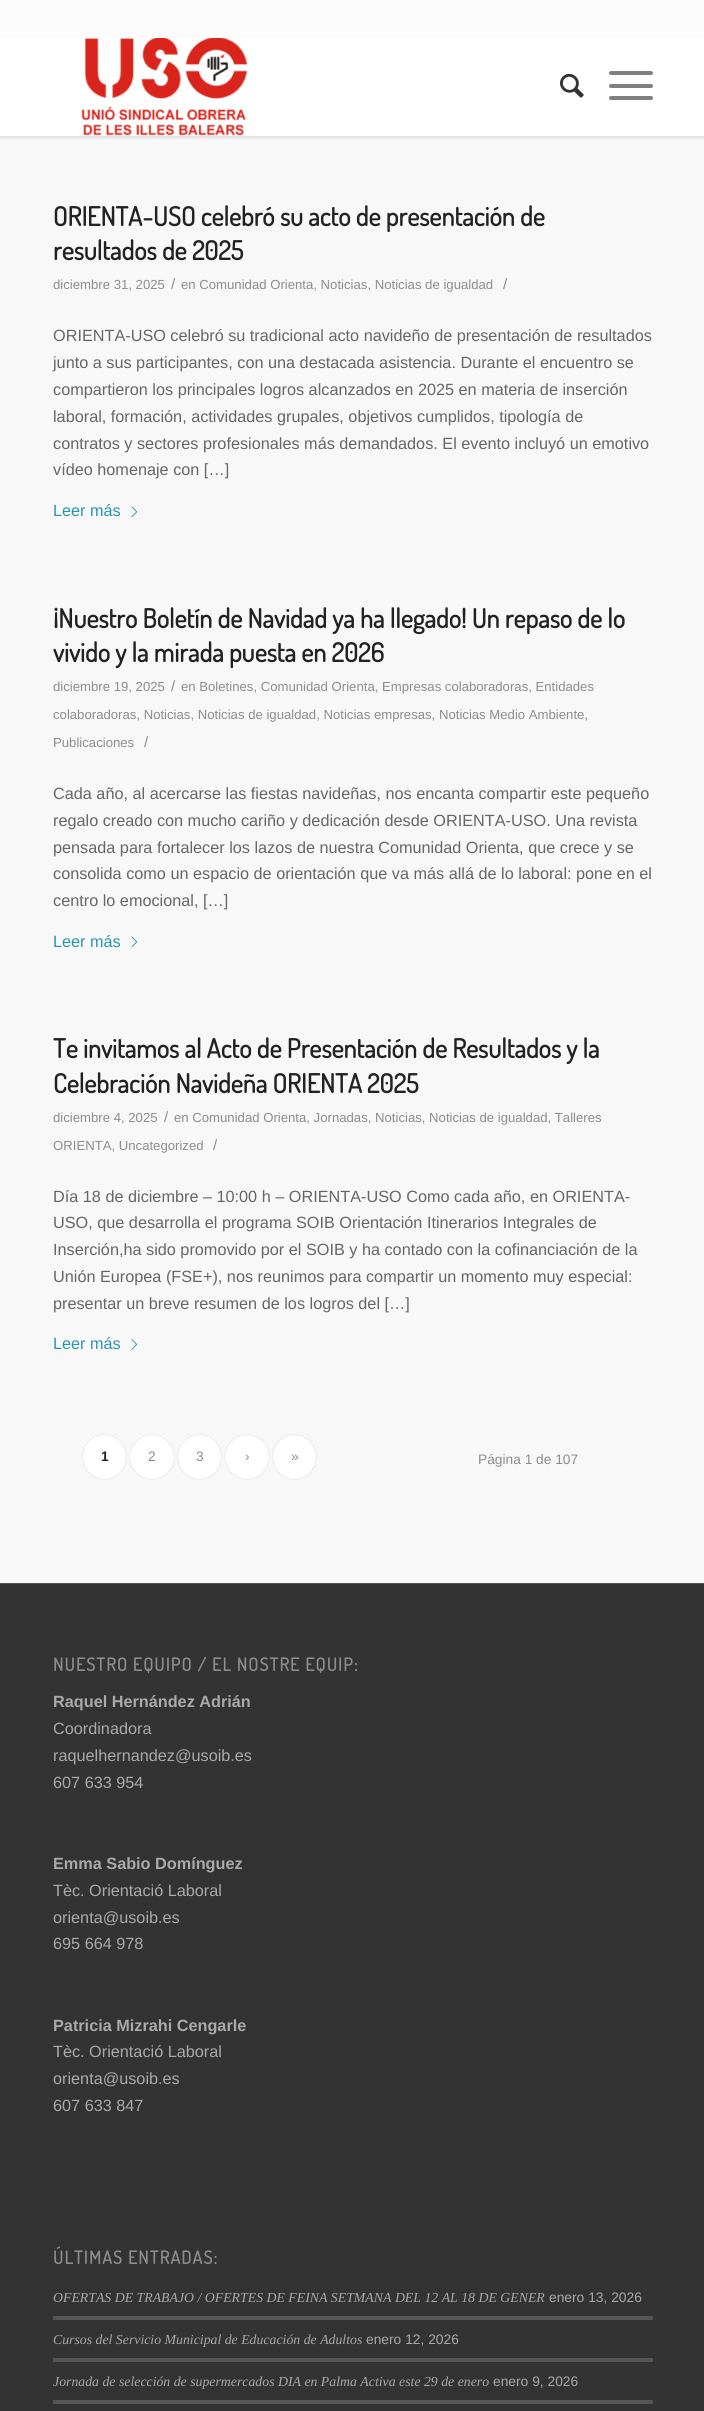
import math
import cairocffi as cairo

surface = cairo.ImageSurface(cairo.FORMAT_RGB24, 704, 2411)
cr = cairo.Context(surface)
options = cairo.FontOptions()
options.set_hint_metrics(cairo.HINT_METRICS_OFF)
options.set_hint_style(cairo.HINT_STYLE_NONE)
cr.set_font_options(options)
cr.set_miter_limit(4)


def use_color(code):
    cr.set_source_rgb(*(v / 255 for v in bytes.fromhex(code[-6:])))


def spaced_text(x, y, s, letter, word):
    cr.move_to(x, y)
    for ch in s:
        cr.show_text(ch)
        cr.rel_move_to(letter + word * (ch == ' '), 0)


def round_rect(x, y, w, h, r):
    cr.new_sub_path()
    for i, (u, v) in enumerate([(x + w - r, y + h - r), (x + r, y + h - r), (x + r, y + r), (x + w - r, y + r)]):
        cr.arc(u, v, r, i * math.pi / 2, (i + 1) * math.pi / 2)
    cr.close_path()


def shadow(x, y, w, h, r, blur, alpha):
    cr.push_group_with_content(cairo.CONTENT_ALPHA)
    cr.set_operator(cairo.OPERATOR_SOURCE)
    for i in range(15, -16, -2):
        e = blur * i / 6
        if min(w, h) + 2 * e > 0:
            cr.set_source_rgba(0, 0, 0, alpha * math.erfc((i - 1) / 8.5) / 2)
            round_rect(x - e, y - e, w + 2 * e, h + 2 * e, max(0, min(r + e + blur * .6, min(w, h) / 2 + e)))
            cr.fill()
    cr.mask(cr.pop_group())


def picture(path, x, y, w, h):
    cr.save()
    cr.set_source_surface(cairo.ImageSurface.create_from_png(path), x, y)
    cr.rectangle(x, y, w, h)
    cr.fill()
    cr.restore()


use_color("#f8f8f8")
cr.paint()
use_color("#000000")
shadow(-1, -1, 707, 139, 0, 1, 0.1)
use_color("#fcfcfc")
cr.rectangle(0, 0, 704, 38)
cr.fill()
use_color("#ffffff")
cr.rectangle(0, 38, 704, 98)
cr.fill()
picture("img1.png", 81, 38, 167, 98)
picture("img2.png", 560, 73, 24, 25)
use_color("#808080")
round_rect(609, 84, 44, 4, 2)
cr.fill()
round_rect(609, 71, 44, 4, 2)
cr.fill()
round_rect(609, 96, 44, 4, 2)
cr.fill()
cr.select_font_face("Dosis", cairo.FONT_SLANT_NORMAL, cairo.FONT_WEIGHT_BOLD)
cr.set_font_size(26.25)
use_color("#222222")
cr.move_to(53, 226)
cr.show_text("ORIENTA-USO celebró su acto de presentación de")
cr.move_to(53, 260)
cr.show_text("resultados de 2025")
cr.select_font_face("Liberation Sans")
cr.set_font_size(13.15)
use_color("#8d8d8d")
cr.move_to(53, 289)
cr.show_text("diciembre 31, 2025")
cr.set_font_size(15)
cr.move_to(171, 289)
cr.show_text("/")
cr.set_font_size(13.15)
cr.move_to(181, 289)
cr.show_text("en Comunidad Orienta, Noticias, Noticias de igualdad")
cr.set_font_size(15)
cr.move_to(503, 289)
cr.show_text("/")
cr.set_font_size(16.25)
use_color("#666666")
cr.move_to(53, 341)
cr.show_text("ORIENTA-USO celebró su tradicional acto navideño de presentación de resultados")
cr.move_to(53, 368)
cr.show_text("junto a sus participantes, con una destacada asistencia. Durante el encuentro se")
cr.move_to(53, 395)
cr.show_text("compartieron los principales logros alcanzados en 2025 en materia de inserción")
cr.move_to(53, 422)
cr.show_text("laboral, formación, actividades grupales, objetivos cumplidos, tipología de")
cr.move_to(53, 449)
cr.show_text("contratos y sectores profesionales más demandados. El evento incluyó un emotivo")
cr.move_to(53, 475)
cr.show_text("vídeo homenaje con […]")
use_color("#2997ab")
cr.move_to(53, 516)
cr.show_text("Leer más")
picture("img3.png", 131, 506, 7, 12)
cr.select_font_face("Dosis", cairo.FONT_SLANT_NORMAL, cairo.FONT_WEIGHT_BOLD)
cr.set_font_size(26.25)
use_color("#222222")
cr.move_to(53, 628)
cr.show_text("¡Nuestro Boletín de Navidad ya ha llegado! Un repaso de lo")
cr.move_to(53, 662)
cr.show_text("vivido y la mirada puesta en 2026")
cr.select_font_face("Liberation Sans")
cr.set_font_size(13.15)
use_color("#8d8d8d")
cr.move_to(53, 691)
cr.show_text("diciembre 19, 2025")
cr.set_font_size(15)
cr.move_to(171, 691)
cr.show_text("/")
cr.set_font_size(13.15)
cr.move_to(181, 691)
cr.show_text("en Boletines, Comunidad Orienta, Empresas colaboradoras, Entidades")
cr.move_to(53, 719)
cr.show_text("colaboradoras, Noticias, Noticias de igualdad, Noticias empresas, Noticias Medio Ambiente,")
cr.move_to(53, 747)
cr.show_text("Publicaciones")
cr.set_font_size(15)
cr.move_to(144, 747)
cr.show_text("/")
cr.set_font_size(16.25)
use_color("#666666")
cr.move_to(53, 799)
cr.show_text("Cada año, al acercarse las fiestas navideñas, nos encanta compartir este pequeño")
cr.move_to(53, 826)
cr.show_text("regalo creado con mucho cariño y dedicación desde ORIENTA-USO. Una revista")
cr.move_to(53, 853)
cr.show_text("pensada para fortalecer los lazos de nuestra Comunidad Orienta, que crece y se")
cr.move_to(53, 879)
cr.show_text("consolida como un espacio de orientación que va más allá de lo laboral: pone en el")
cr.move_to(53, 906)
cr.show_text("centro lo emocional, […]")
use_color("#2997ab")
cr.move_to(53, 947)
cr.show_text("Leer más")
picture("img3.png", 131, 936, 7, 12)
cr.select_font_face("Dosis", cairo.FONT_SLANT_NORMAL, cairo.FONT_WEIGHT_BOLD)
cr.set_font_size(26.25)
use_color("#222222")
cr.move_to(53, 1058)
cr.show_text("Te invitamos al Acto de Presentación de Resultados y la")
cr.move_to(53, 1093)
cr.show_text("Celebración Navideña ORIENTA 2025")
cr.select_font_face("Liberation Sans")
cr.set_font_size(13.15)
use_color("#8d8d8d")
cr.move_to(53, 1122)
cr.show_text("diciembre 4, 2025")
cr.set_font_size(15)
cr.move_to(164, 1122)
cr.show_text("/")
cr.set_font_size(13.15)
cr.move_to(174, 1122)
cr.show_text("en Comunidad Orienta, Jornadas, Noticias, Noticias de igualdad, Talleres")
cr.move_to(53, 1150)
cr.show_text("ORIENTA, Uncategorized")
cr.set_font_size(15)
cr.move_to(213, 1150)
cr.show_text("/")
cr.set_font_size(16.25)
use_color("#666666")
cr.move_to(53, 1202)
cr.show_text("Día 18 de diciembre – 10:00 h – ORIENTA-USO Como cada año, en ORIENTA-")
cr.move_to(53, 1228)
cr.show_text("USO, que desarrolla el programa SOIB Orientación Itinerarios Integrales de")
cr.move_to(53, 1255)
cr.show_text("Inserción,ha sido promovido por el SOIB y ha contado con la cofinanciación de la")
cr.move_to(53, 1282)
cr.show_text("Unión Europea (FSE+), nos reunimos para compartir un momento muy especial:")
cr.move_to(53, 1309)
cr.show_text("presentar un breve resumen de los logros del […]")
use_color("#2997ab")
cr.move_to(53, 1349)
cr.show_text("Leer más")
picture("img4.png", 131, 1339, 7, 11)
use_color("#000000")
shadow(83, 1435, 43, 44, 21.5, 0.5, 0.2)
use_color("#ffffff")
round_rect(83, 1435, 43, 44, 21.5)
cr.fill()
cr.select_font_face("Liberation Sans", cairo.FONT_SLANT_NORMAL, cairo.FONT_WEIGHT_BOLD)
cr.set_font_size(13.75)
use_color("#222222")
cr.move_to(101, 1461)
cr.show_text("1")
use_color("#000000")
shadow(130, 1435, 44, 44, 22, 0.5, 0.2)
use_color("#ffffff")
cr.arc(152, 1457, 22, 0, 2 * math.pi)
cr.fill()
cr.select_font_face("Liberation Sans")
use_color("#8d8d8d")
cr.move_to(148, 1461)
cr.show_text("2")
use_color("#000000")
shadow(178, 1435, 43, 44, 21.5, 0.5, 0.2)
use_color("#ffffff")
round_rect(178, 1435, 43, 44, 21.5)
cr.fill()
use_color("#8d8d8d")
cr.move_to(196, 1461)
cr.show_text("3")
use_color("#000000")
shadow(225, 1435, 44, 44, 22, 0.5, 0.2)
use_color("#ffffff")
cr.arc(247, 1457, 22, 0, 2 * math.pi)
cr.fill()
use_color("#8d8d8d")
cr.move_to(245, 1461)
cr.show_text("›")
use_color("#000000")
shadow(273, 1435, 43, 44, 21.5, 0.5, 0.2)
use_color("#ffffff")
round_rect(273, 1435, 43, 44, 21.5)
cr.fill()
use_color("#8d8d8d")
cr.move_to(291, 1461)
cr.show_text("»")
cr.move_to(478, 1464)
cr.show_text("Página 1 de 107")
use_color("#333333")
cr.rectangle(0, 1584, 704, 827)
cr.fill()
use_color("#555555")
cr.rectangle(0, 1583, 704, 1)
cr.fill()
cr.select_font_face("Dosis", cairo.FONT_SLANT_NORMAL, cairo.FONT_WEIGHT_BOLD)
cr.set_font_size(17.9)
use_color("#8d8d8d")
spaced_text(53, 1671, "NUESTRO EQUIPO / EL NOSTRE EQUIP:", 1.25, 0)
cr.select_font_face("Liberation Sans", cairo.FONT_SLANT_NORMAL, cairo.FONT_WEIGHT_BOLD)
cr.set_font_size(16.25)
use_color("#aaaaaa")
cr.move_to(53, 1707)
cr.show_text("Raquel Hernández Adrián")
cr.select_font_face("Liberation Sans")
cr.move_to(53, 1734)
cr.show_text("Coordinadora")
cr.move_to(53, 1761)
cr.show_text("raquelhernandez@usoib.es")
cr.move_to(53, 1788)
cr.show_text("607 633 954")
cr.select_font_face("Liberation Sans", cairo.FONT_SLANT_NORMAL, cairo.FONT_WEIGHT_BOLD)
cr.move_to(53, 1869)
cr.show_text("Emma Sabio Domínguez")
cr.select_font_face("Liberation Sans")
cr.move_to(53, 1896)
cr.show_text("Tèc. Orientació Laboral")
cr.move_to(53, 1923)
cr.show_text("orienta@usoib.es")
cr.move_to(53, 1949)
cr.show_text("695 664 978")
cr.select_font_face("Liberation Sans", cairo.FONT_SLANT_NORMAL, cairo.FONT_WEIGHT_BOLD)
cr.move_to(53, 2031)
cr.show_text("Patricia Mizrahi Cengarle")
cr.select_font_face("Liberation Sans")
cr.move_to(53, 2057)
cr.show_text("Tèc. Orientació Laboral")
cr.move_to(53, 2084)
cr.show_text("orienta@usoib.es")
cr.move_to(53, 2111)
cr.show_text("607 633 847")
cr.select_font_face("Dosis", cairo.FONT_SLANT_NORMAL, cairo.FONT_WEIGHT_BOLD)
cr.set_font_size(17.9)
use_color("#8d8d8d")
spaced_text(53, 2264, "ÚLTIMAS ENTRADAS:", 1.25, 0)
cr.select_font_face("Liberation Serif", cairo.FONT_SLANT_ITALIC)
cr.set_font_size(13.8)
use_color("#aaaaaa")
cr.move_to(53, 2302)
cr.show_text("OFERTAS DE TRABAJO / OFERTES DE FEINA SETMANA DEL 12 AL 18 DE GENER")
cr.select_font_face("Liberation Sans")
cr.move_to(549, 2302)
cr.show_text("enero 13, 2026")
use_color("#555555")
cr.rectangle(53, 2316, 600, 4)
cr.fill()
cr.select_font_face("Liberation Serif", cairo.FONT_SLANT_ITALIC)
use_color("#aaaaaa")
cr.move_to(53, 2344)
cr.show_text("Cursos del Servicio Municipal de Educación de Adultos")
cr.select_font_face("Liberation Sans")
cr.move_to(366, 2344)
cr.show_text("enero 12, 2026")
use_color("#555555")
cr.rectangle(53, 2358, 600, 4)
cr.fill()
cr.select_font_face("Liberation Serif", cairo.FONT_SLANT_ITALIC)
use_color("#aaaaaa")
cr.move_to(53, 2386)
cr.show_text("Jornada de selección de supermercados DIA en Palma Activa este 29 de enero")
cr.select_font_face("Liberation Sans")
cr.move_to(493, 2386)
cr.show_text("enero 9, 2026")
use_color("#555555")
cr.rectangle(53, 2400, 600, 4)
cr.fill()
surface.write_to_png("result.png")
